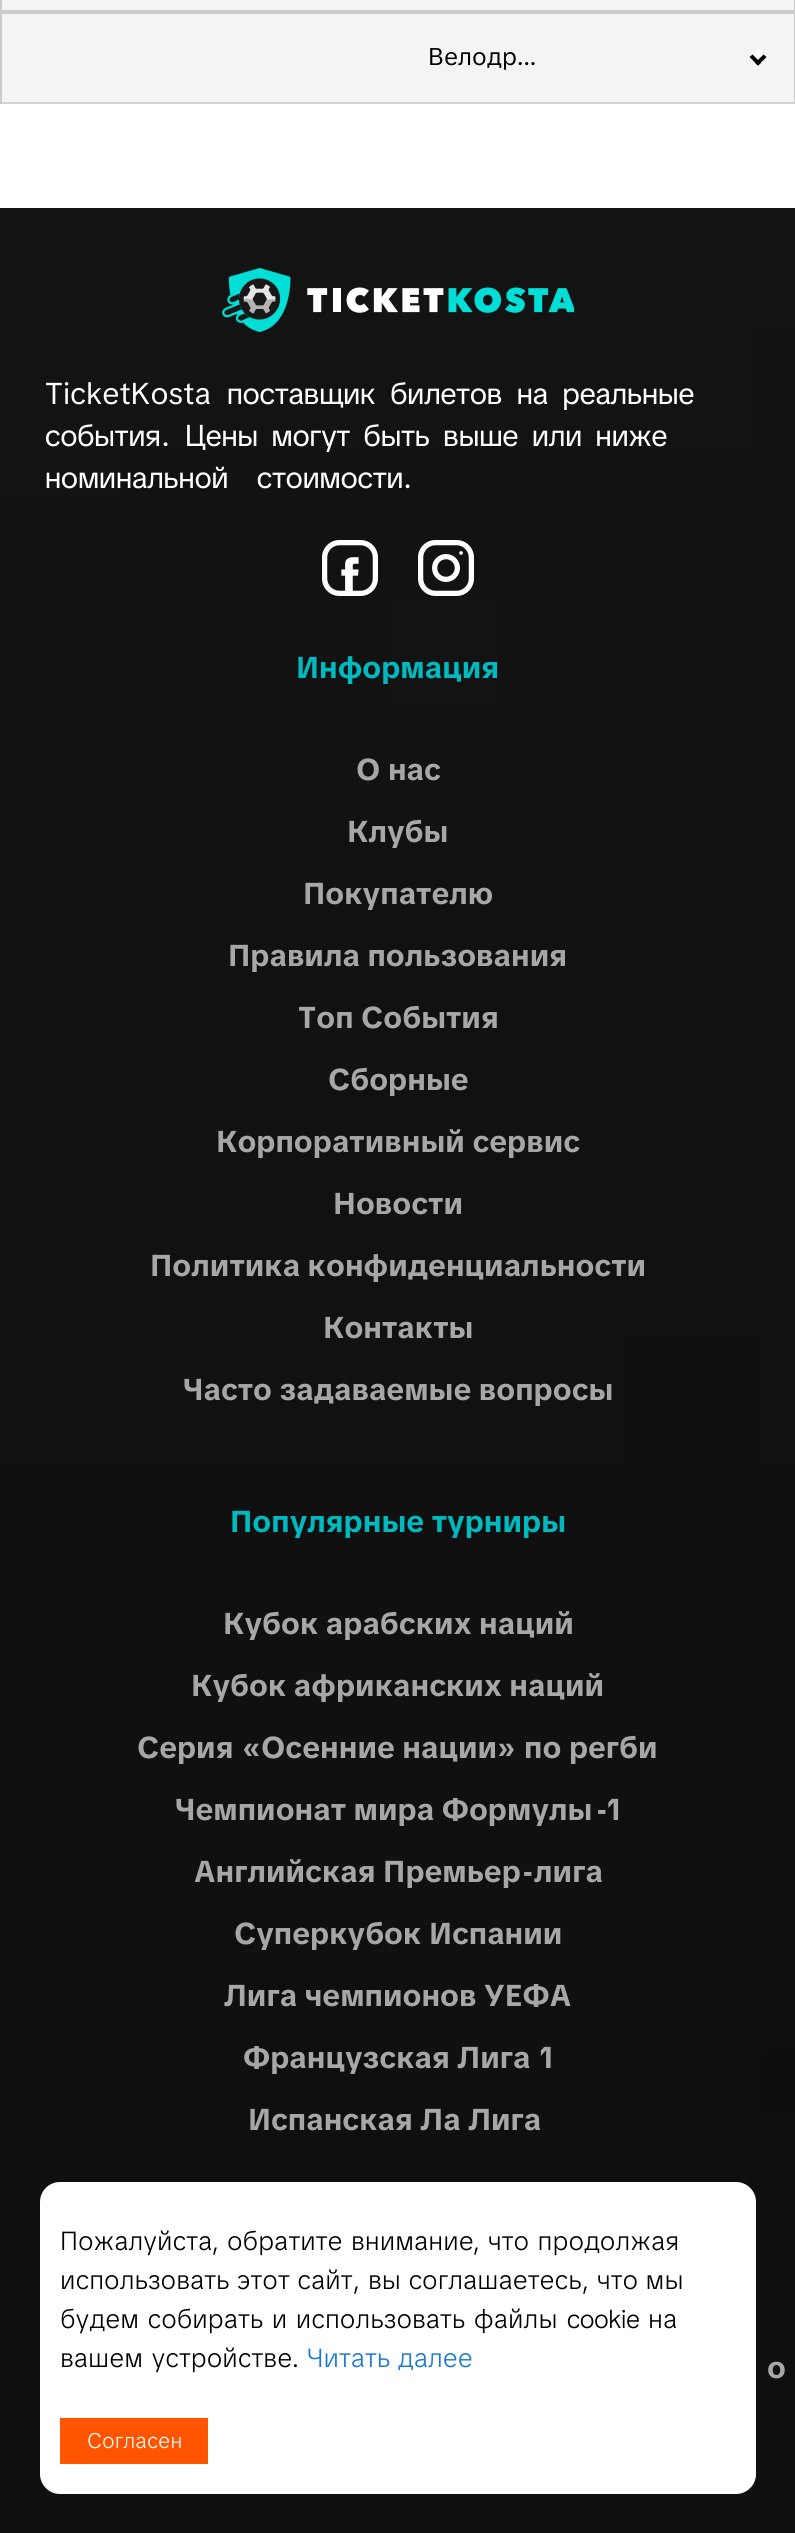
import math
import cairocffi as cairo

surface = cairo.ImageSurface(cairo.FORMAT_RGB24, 795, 2533)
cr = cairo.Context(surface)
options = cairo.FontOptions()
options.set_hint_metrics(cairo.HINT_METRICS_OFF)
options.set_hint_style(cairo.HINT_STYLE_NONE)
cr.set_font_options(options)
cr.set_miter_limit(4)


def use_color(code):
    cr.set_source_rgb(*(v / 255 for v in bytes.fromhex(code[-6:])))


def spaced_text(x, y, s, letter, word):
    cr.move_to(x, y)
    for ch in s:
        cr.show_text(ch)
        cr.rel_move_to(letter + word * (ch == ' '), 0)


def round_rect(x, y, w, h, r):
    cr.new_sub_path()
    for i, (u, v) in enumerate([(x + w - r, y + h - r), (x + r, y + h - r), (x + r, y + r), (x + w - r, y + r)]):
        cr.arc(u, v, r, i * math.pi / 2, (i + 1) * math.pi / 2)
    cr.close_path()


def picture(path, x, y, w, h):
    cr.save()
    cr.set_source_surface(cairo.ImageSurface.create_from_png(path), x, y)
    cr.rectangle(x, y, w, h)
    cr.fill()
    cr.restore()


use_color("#ffffff")
cr.paint()
use_color("#f4f4f4")
cr.rectangle(2, 0, 792, 102)
cr.fill()
cr.rectangle(1, -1, 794, 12)
use_color("#cccccc")
cr.stroke()
cr.rectangle(0, 12, 795, 2)
cr.fill()
cr.rectangle(794, 12, 1, 92)
cr.fill()
cr.rectangle(0, 12, 2, 92)
cr.fill()
cr.select_font_face("TikTok Sans")
cr.set_font_size(24)
use_color("#000000")
cr.move_to(428, 65)
cr.show_text("Велодр")
cr.select_font_face("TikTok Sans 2")
cr.move_to(517, 65)
cr.show_text("...")
use_color("#ffffff")
cr.new_path()
cr.move_to(758, 48.5)
cr.line_to(763.5, 54.5)
cr.line_to(758, 60)
cr.line_to(752.5, 54.5)
cr.close_path()
cr.fill()
use_color("#000000")
cr.new_path()
cr.move_to(763.5, 54.5)
cr.line_to(766.5, 57)
cr.line_to(758, 65.5)
cr.line_to(755, 63)
cr.close_path()
cr.fill()
cr.new_path()
cr.move_to(752.5, 54.5)
cr.line_to(761, 63)
cr.line_to(758, 65.5)
cr.line_to(749.5, 57)
cr.close_path()
cr.fill()
use_color("#d1d1d1")
cr.rectangle(2, 102, 792, 2)
cr.fill()
picture("img1.png", 0, 208, 795, 2325)
picture("img2.png", 222, 268, 352, 64)
cr.select_font_face("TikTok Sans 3")
cr.set_font_size(30)
use_color("#ffffff")
cr.move_to(45, 404)
cr.show_text("TicketKosta")
cr.select_font_face("TikTok Sans 2")
spaced_text(227, 404, "поставщик билетов на реальные", 0, 8)
cr.move_to(45, 446)
cr.show_text("события")
cr.select_font_face("TikTok Sans 3")
cr.move_to(161, 446)
cr.show_text(".")
cr.select_font_face("TikTok Sans 2")
spaced_text(185, 446, "Цены могут быть выше или ниже", 0, 7)
spaced_text(45, 488, "номинальной стоимости", 0, 22)
cr.select_font_face("TikTok Sans 3")
cr.move_to(403, 488)
cr.show_text(".")
picture("img3.png", 322, 540, 56, 56)
picture("img4.png", 418, 540, 56, 56)
cr.select_font_face("TikTok Sans", cairo.FONT_SLANT_NORMAL, cairo.FONT_WEIGHT_BOLD)
use_color("#00bac0")
cr.move_to(296, 678)
cr.show_text("Информация")
use_color("#a7a7a7")
cr.move_to(356, 780)
cr.show_text("О нас")
cr.move_to(347, 842)
cr.show_text("Клубы")
cr.move_to(303, 904)
cr.show_text("Покупателю")
cr.move_to(228, 966)
cr.show_text("Правила пользования")
cr.move_to(298, 1028)
cr.show_text("Топ События")
cr.move_to(328, 1090)
cr.show_text("Сборные")
cr.move_to(216, 1152)
cr.show_text("Корпоративный сервис")
cr.move_to(333, 1214)
cr.show_text("Новости")
cr.move_to(150, 1276)
cr.show_text("Политика конфиденциальности")
cr.move_to(323, 1338)
cr.show_text("Контакты")
cr.move_to(183, 1400)
cr.show_text("Часто задаваемые вопросы")
use_color("#00bac0")
cr.move_to(230, 1532)
cr.show_text("Популярные турниры")
use_color("#a7a7a7")
cr.move_to(223, 1634)
cr.show_text("Кубок арабских наций")
cr.move_to(191, 1696)
cr.show_text("Кубок африканских наций")
cr.move_to(137, 1758)
cr.show_text("Серия")
cr.select_font_face("TikTok Sans 2", cairo.FONT_SLANT_NORMAL, cairo.FONT_WEIGHT_BOLD)
cr.move_to(242, 1758)
cr.show_text("«")
cr.select_font_face("TikTok Sans", cairo.FONT_SLANT_NORMAL, cairo.FONT_WEIGHT_BOLD)
cr.move_to(261, 1758)
cr.show_text("Осенние нации")
cr.select_font_face("TikTok Sans 2", cairo.FONT_SLANT_NORMAL, cairo.FONT_WEIGHT_BOLD)
cr.move_to(497, 1758)
cr.show_text("»")
cr.select_font_face("TikTok Sans", cairo.FONT_SLANT_NORMAL, cairo.FONT_WEIGHT_BOLD)
cr.move_to(524, 1758)
cr.show_text("по регби")
cr.move_to(175, 1820)
cr.show_text("Чемпионат мира Формулы")
cr.select_font_face("TikTok Sans 2", cairo.FONT_SLANT_NORMAL, cairo.FONT_WEIGHT_BOLD)
cr.move_to(596, 1820)
cr.show_text("-1")
cr.select_font_face("TikTok Sans", cairo.FONT_SLANT_NORMAL, cairo.FONT_WEIGHT_BOLD)
cr.move_to(194, 1882)
cr.show_text("Английская Премьер")
cr.select_font_face("TikTok Sans 2", cairo.FONT_SLANT_NORMAL, cairo.FONT_WEIGHT_BOLD)
cr.move_to(522, 1882)
cr.show_text("-")
cr.select_font_face("TikTok Sans", cairo.FONT_SLANT_NORMAL, cairo.FONT_WEIGHT_BOLD)
cr.move_to(534, 1882)
cr.show_text("лига")
cr.move_to(234, 1944)
cr.show_text("Суперкубок Испании")
cr.move_to(224, 2006)
cr.show_text("Лига чемпионов УЕФА")
cr.move_to(243, 2068)
cr.show_text("Французская Лига")
cr.select_font_face("TikTok Sans 2", cairo.FONT_SLANT_NORMAL, cairo.FONT_WEIGHT_BOLD)
cr.move_to(540, 2068)
cr.show_text("1")
cr.select_font_face("TikTok Sans", cairo.FONT_SLANT_NORMAL, cairo.FONT_WEIGHT_BOLD)
cr.move_to(248, 2130)
cr.show_text("Испанская Ла Лига")
cr.move_to(767, 2378)
cr.show_text("о")
use_color("#ffffff")
round_rect(40, 2182, 716, 312, 20)
cr.fill()
cr.select_font_face("TikTok Sans Light")
cr.set_font_size(26)
use_color("#000000")
cr.move_to(60, 2250)
cr.show_text("Пожалуйста")
cr.select_font_face("TikTok Sans 2 Light")
cr.move_to(212, 2250)
cr.show_text(",")
cr.select_font_face("TikTok Sans Light")
spaced_text(227, 2250, "обратите внимание", 0, 1)
cr.select_font_face("TikTok Sans 2 Light")
cr.move_to(473, 2250)
cr.show_text(",")
cr.select_font_face("TikTok Sans Light")
spaced_text(488, 2250, "что продолжая", 0, 1)
cr.move_to(60, 2289)
cr.show_text("использовать этот сайт")
cr.select_font_face("TikTok Sans 2 Light")
cr.move_to(353, 2289)
cr.show_text(",")
cr.select_font_face("TikTok Sans Light")
cr.move_to(368, 2289)
cr.show_text("вы соглашаетесь")
cr.select_font_face("TikTok Sans 2 Light")
cr.move_to(582, 2289)
cr.show_text(",")
cr.select_font_face("TikTok Sans Light")
cr.move_to(597, 2289)
cr.show_text("что мы")
spaced_text(60, 2328, "будем собирать и использовать файлы", 0, 1)
cr.select_font_face("TikTok Sans 2 Light")
cr.move_to(567, 2328)
cr.show_text("cookie")
cr.select_font_face("TikTok Sans Light")
cr.move_to(648, 2328)
cr.show_text("на")
spaced_text(60, 2367, "вашем устройстве", 0, 1)
cr.select_font_face("TikTok Sans 2 Light")
cr.move_to(292, 2367)
cr.show_text(".")
cr.select_font_face("TikTok Sans Light")
use_color("#1976d2")
cr.move_to(307, 2367)
cr.show_text("Читать далее")
use_color("#ff5400")
cr.rectangle(60, 2418, 148, 46)
cr.fill()
cr.select_font_face("TikTok Sans 3 Light")
cr.set_font_size(21)
use_color("#ffffff")
cr.move_to(87, 2448)
cr.show_text("Согласен")
surface.write_to_png("result.png")
